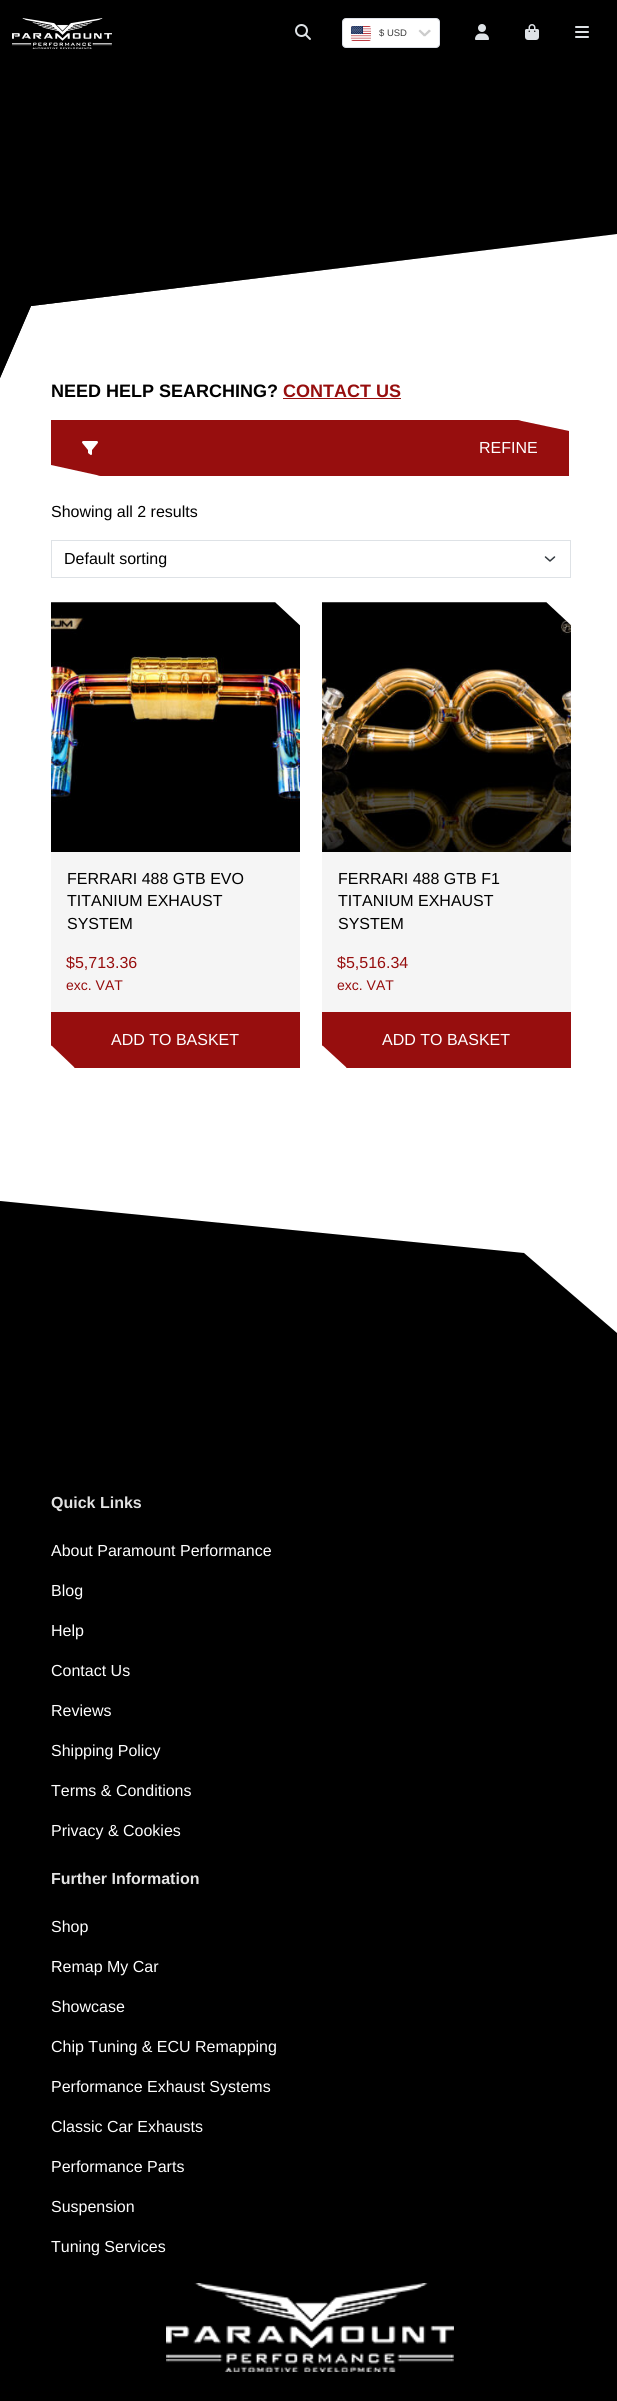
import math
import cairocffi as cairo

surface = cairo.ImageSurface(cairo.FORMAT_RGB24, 617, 2401)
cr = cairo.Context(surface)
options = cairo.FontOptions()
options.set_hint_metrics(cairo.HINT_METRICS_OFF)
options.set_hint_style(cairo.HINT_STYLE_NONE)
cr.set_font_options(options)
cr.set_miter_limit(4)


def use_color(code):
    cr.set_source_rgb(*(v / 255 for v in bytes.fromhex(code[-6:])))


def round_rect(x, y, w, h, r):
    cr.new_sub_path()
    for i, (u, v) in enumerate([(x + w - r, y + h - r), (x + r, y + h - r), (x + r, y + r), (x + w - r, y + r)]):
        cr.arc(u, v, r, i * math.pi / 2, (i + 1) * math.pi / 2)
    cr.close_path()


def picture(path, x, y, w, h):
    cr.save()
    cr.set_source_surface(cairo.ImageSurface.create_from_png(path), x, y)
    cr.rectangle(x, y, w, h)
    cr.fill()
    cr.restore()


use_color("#000000")
cr.paint()
use_color("#ffffff")
cr.rectangle(0, 234, 617, 952)
cr.fill()
use_color("#000000")
cr.new_path()
cr.move_to(0, -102)
cr.line_to(0, 378)
cr.line_to(31, 306)
cr.line_to(617, 234)
cr.line_to(617, -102)
cr.close_path()
cr.fill()
gradient = cairo.LinearGradient(617, 138, 0, 138)
gradient.add_color_stop_rgba(0, 0, 0, 0, 0)
gradient.add_color_stop_rgba(1, 0, 0, 0, 1)
cr.set_source(gradient)
cr.new_path()
cr.move_to(0, -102)
cr.line_to(0, 378)
cr.line_to(31, 306)
cr.line_to(617, 234)
cr.line_to(617, -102)
cr.close_path()
cr.fill()
picture("img1.png", 12, 18, 100, 31)
picture("img2.png", 295, 24, 16, 16)
use_color("#ffffff")
round_rect(342.5, 18.5, 97, 29, 3.5)
cr.fill_preserve()
use_color("#dcdfe6")
cr.set_line_width(1)
cr.stroke()
picture("img3.png", 351, 26, 20, 15)
cr.select_font_face("Liberation Sans")
cr.set_font_size(9.5)
use_color("#3b3b3b")
cr.move_to(379, 36)
cr.show_text("$ USD")
use_color("#cccccc")
cr.new_path()
cr.move_to(418.5, 31)
cr.line_to(420, 29.5)
cr.line_to(426, 35)
cr.line_to(424, 36.5)
cr.close_path()
cr.fill()
cr.new_path()
cr.move_to(429, 29.5)
cr.line_to(431, 31)
cr.line_to(425, 36.5)
cr.line_to(423.5, 35)
cr.close_path()
cr.fill()
picture("img4.png", 475, 24, 14, 16)
picture("img5.png", 525, 24, 14, 16)
picture("img6.png", 575, 26, 14, 12)
cr.select_font_face("Liberation Sans", cairo.FONT_SLANT_NORMAL, cairo.FONT_WEIGHT_BOLD)
cr.set_font_size(18)
use_color("#000000")
cr.move_to(51, 397)
cr.show_text("NEED HELP SEARCHING?")
use_color("#970e0e")
cr.move_to(283, 397)
cr.show_text("CONTACT US")
cr.rectangle(283, 398, 118, 1)
cr.fill()
cr.new_path()
cr.move_to(51, 465)
cr.line_to(51, 420)
cr.line_to(517, 420)
cr.line_to(569, 431)
cr.line_to(569, 476)
cr.line_to(101, 476)
cr.close_path()
cr.fill()
cr.set_fill_rule(cairo.FILL_RULE_EVEN_ODD)
cr.new_path()
cr.move_to(52, 421)
cr.line_to(52, 465)
cr.line_to(51, 465)
cr.line_to(51, 420)
cr.line_to(517, 420)
cr.line_to(521, 421)
cr.close_path()
cr.move_to(569, 476)
cr.line_to(101, 476)
cr.line_to(97, 475)
cr.line_to(568, 475)
cr.line_to(568, 431)
cr.line_to(569, 431)
cr.close_path()
cr.fill()
picture("img7.png", 82, 441, 16, 14)
cr.select_font_face("Liberation Sans")
cr.set_font_size(16)
use_color("#ffffff")
cr.move_to(479, 453)
cr.show_text("REFINE")
use_color("#000000")
cr.move_to(51, 517)
cr.show_text("Showing all 2 results")
cr.new_path()
cr.move_to(545.5, 557)
cr.line_to(550, 561)
cr.line_to(554.5, 557)
use_color("#343a40")
cr.set_line_width(1.5)
cr.set_line_cap(cairo.LINE_CAP_ROUND)
cr.set_line_join(cairo.LINE_JOIN_ROUND)
cr.stroke()
cr.rectangle(51.5, 540.5, 519, 37)
use_color("#dee2e6")
cr.set_line_width(1)
cr.set_line_cap(cairo.LINE_CAP_BUTT)
cr.set_line_join(cairo.LINE_JOIN_MITER)
cr.stroke()
use_color("#000000")
cr.move_to(64, 564)
cr.show_text("Default sorting")
use_color("#f5f5f5")
cr.set_fill_rule(cairo.FILL_RULE_WINDING)
cr.new_path()
cr.move_to(51, 1045)
cr.line_to(51, 602)
cr.line_to(275, 602)
cr.line_to(300, 625)
cr.line_to(300, 1068)
cr.line_to(75, 1068)
cr.close_path()
cr.fill()
picture("img8.png", 51, 602, 249, 250)
use_color("#000000")
cr.move_to(67, 884)
cr.show_text("FERRARI 488 GTB EVO")
cr.move_to(67, 906)
cr.show_text("TITANIUM EXHAUST")
cr.move_to(67, 929)
cr.show_text("SYSTEM")
use_color("#970e0e")
cr.move_to(66, 968)
cr.show_text("$5,713.36")
cr.set_font_size(14)
cr.move_to(66, 990)
cr.show_text("exc. VAT")
cr.new_path()
cr.move_to(51, 1012)
cr.line_to(300, 1012)
cr.line_to(300, 1068)
cr.line_to(75, 1068)
cr.line_to(51, 1045)
cr.close_path()
cr.fill()
cr.new_path()
cr.move_to(51, 1012)
cr.line_to(51, 1045)
cr.line_to(52, 1046)
cr.line_to(52, 1013)
cr.line_to(299, 1013)
cr.line_to(299, 1067)
cr.line_to(74, 1067)
cr.line_to(75, 1068)
cr.line_to(300, 1068)
cr.line_to(300, 1012)
cr.close_path()
cr.fill()
cr.set_font_size(16)
use_color("#ffffff")
cr.move_to(111, 1045)
cr.show_text("ADD TO BASKET")
use_color("#f5f5f5")
cr.new_path()
cr.move_to(322, 1045)
cr.line_to(322, 602)
cr.line_to(546, 602)
cr.line_to(571, 625)
cr.line_to(571, 1068)
cr.line_to(347, 1068)
cr.close_path()
cr.fill()
picture("img9.png", 322, 602, 249, 250)
use_color("#000000")
cr.move_to(338, 884)
cr.show_text("FERRARI 488 GTB F1")
cr.move_to(338, 906)
cr.show_text("TITANIUM EXHAUST")
cr.move_to(338, 929)
cr.show_text("SYSTEM")
use_color("#970e0e")
cr.move_to(337, 968)
cr.show_text("$5,516.34")
cr.set_font_size(14)
cr.move_to(337, 990)
cr.show_text("exc. VAT")
cr.new_path()
cr.move_to(322, 1012)
cr.line_to(571, 1012)
cr.line_to(571, 1068)
cr.line_to(347, 1068)
cr.line_to(322, 1045)
cr.close_path()
cr.fill()
cr.new_path()
cr.move_to(322, 1012)
cr.line_to(322, 1045)
cr.line_to(323, 1046)
cr.line_to(323, 1013)
cr.line_to(570, 1013)
cr.line_to(570, 1067)
cr.line_to(346, 1067)
cr.line_to(347, 1068)
cr.line_to(571, 1068)
cr.line_to(571, 1012)
cr.close_path()
cr.fill()
cr.set_font_size(16)
use_color("#ffffff")
cr.move_to(382, 1045)
cr.show_text("ADD TO BASKET")
cr.new_path()
cr.move_to(0, 1186)
cr.line_to(0, 1201)
cr.line_to(524, 1253)
cr.line_to(617, 1333)
cr.line_to(617, 1186)
cr.close_path()
cr.fill()
cr.select_font_face("Liberation Sans", cairo.FONT_SLANT_NORMAL, cairo.FONT_WEIGHT_BOLD)
use_color("#e3e3e3")
cr.move_to(51, 1508)
cr.show_text("Quick Links")
cr.select_font_face("Liberation Sans")
use_color("#ffffff")
cr.move_to(51, 1556)
cr.show_text("About Paramount Performance")
cr.move_to(51, 1596)
cr.show_text("Blog")
cr.move_to(51, 1636)
cr.show_text("Help")
cr.move_to(51, 1676)
cr.show_text("Contact Us")
cr.move_to(51, 1716)
cr.show_text("Reviews")
cr.move_to(51, 1756)
cr.show_text("Shipping Policy")
cr.move_to(51, 1796)
cr.show_text("Terms & Conditions")
cr.move_to(51, 1836)
cr.show_text("Privacy & Cookies")
cr.select_font_face("Liberation Sans", cairo.FONT_SLANT_NORMAL, cairo.FONT_WEIGHT_BOLD)
use_color("#e3e3e3")
cr.move_to(51, 1884)
cr.show_text("Further Information")
cr.select_font_face("Liberation Sans")
use_color("#ffffff")
cr.move_to(51, 1932)
cr.show_text("Shop")
cr.move_to(51, 1972)
cr.show_text("Remap My Car")
cr.move_to(51, 2012)
cr.show_text("Showcase")
cr.move_to(51, 2052)
cr.show_text("Chip Tuning & ECU Remapping")
cr.move_to(51, 2092)
cr.show_text("Performance Exhaust Systems")
cr.move_to(51, 2132)
cr.show_text("Classic Car Exhausts")
cr.move_to(51, 2172)
cr.show_text("Performance Parts")
cr.move_to(51, 2212)
cr.show_text("Suspension")
cr.move_to(51, 2252)
cr.show_text("Tuning Services")
picture("img10.png", 166, 2283, 288, 89)
surface.write_to_png("result.png")
